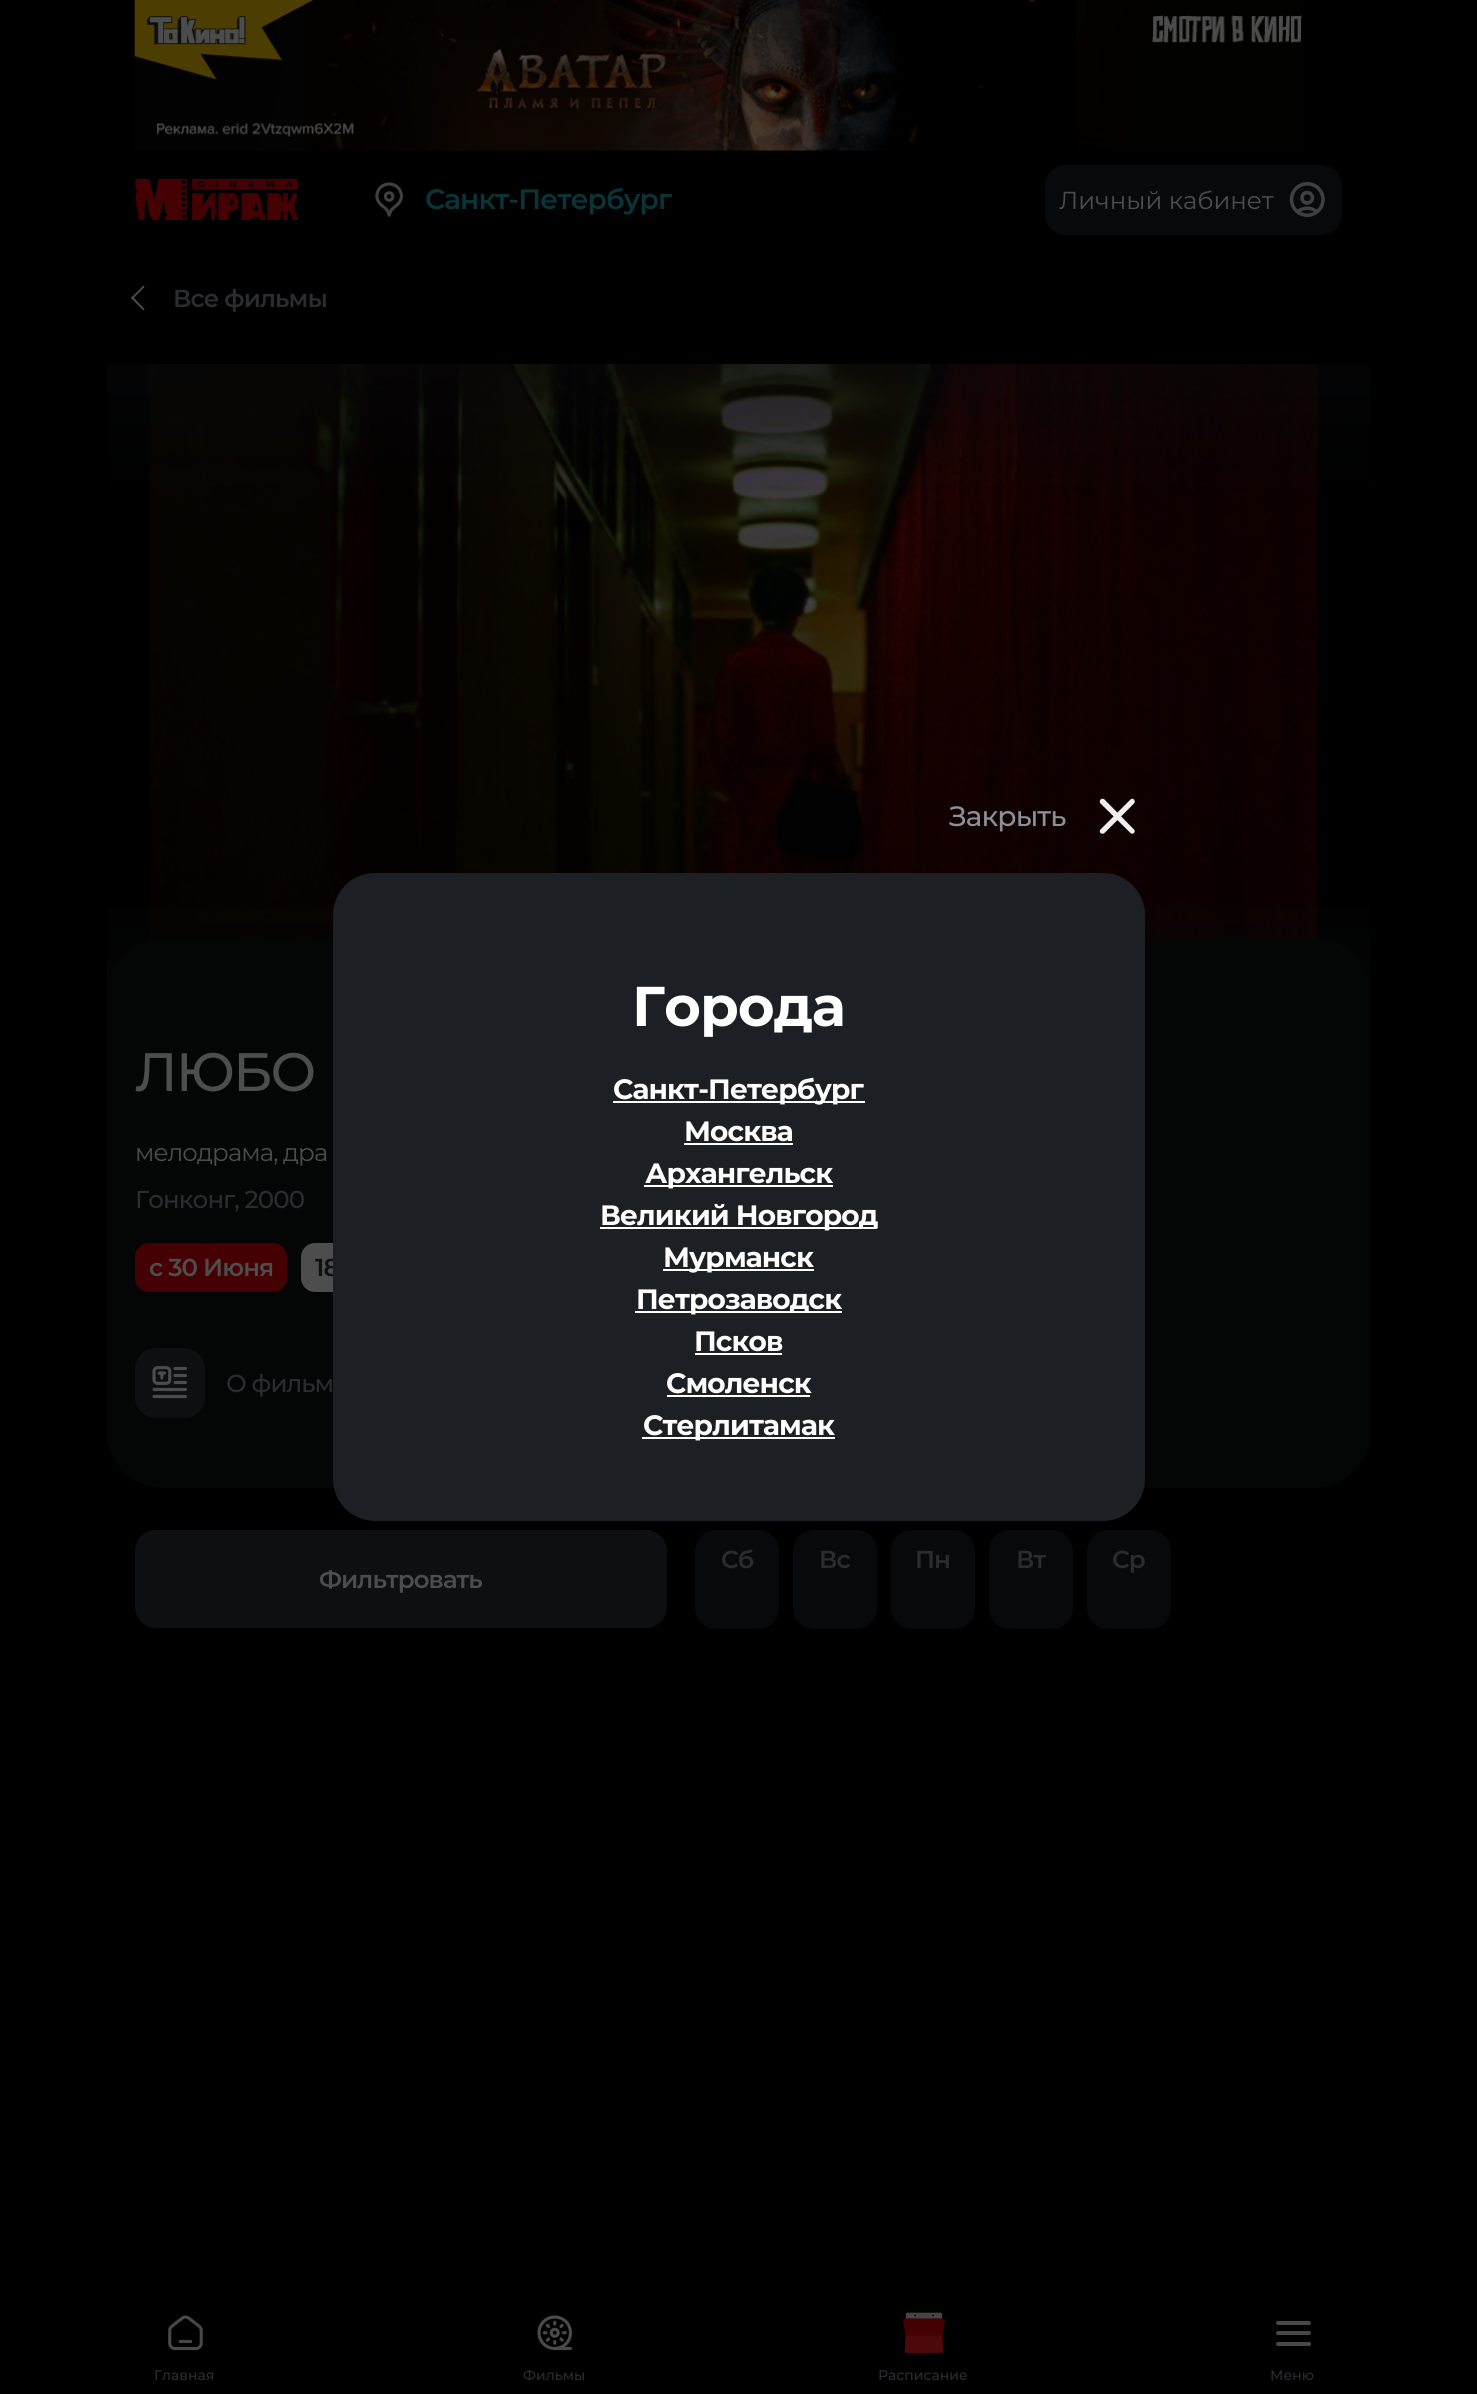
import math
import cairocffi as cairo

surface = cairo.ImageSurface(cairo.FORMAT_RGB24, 1477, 2394)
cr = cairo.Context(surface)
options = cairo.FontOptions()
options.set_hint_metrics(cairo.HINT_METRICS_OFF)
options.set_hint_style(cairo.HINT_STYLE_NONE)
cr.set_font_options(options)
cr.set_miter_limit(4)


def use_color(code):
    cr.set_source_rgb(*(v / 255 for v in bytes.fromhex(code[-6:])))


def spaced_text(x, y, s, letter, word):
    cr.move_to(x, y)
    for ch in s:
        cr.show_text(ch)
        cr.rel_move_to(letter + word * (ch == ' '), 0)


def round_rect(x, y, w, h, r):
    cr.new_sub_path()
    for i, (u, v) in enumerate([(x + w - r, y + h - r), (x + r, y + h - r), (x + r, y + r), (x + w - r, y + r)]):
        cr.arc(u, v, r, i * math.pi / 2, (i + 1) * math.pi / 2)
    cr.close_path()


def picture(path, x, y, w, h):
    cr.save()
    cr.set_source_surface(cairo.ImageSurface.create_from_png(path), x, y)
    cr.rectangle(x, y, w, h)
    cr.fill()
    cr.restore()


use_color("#000000")
cr.paint()
picture("img1.png", 134, 0, 1169, 151)
picture("img2.png", 135, 179, 163, 41)
picture("img3.png", 375, 182, 28, 35)
cr.select_font_face("Montserrat SemiBold")
cr.set_font_size(28)
use_color("#093538")
spaced_text(425, 209, "Санкт-Петербург", -0.9, 0)
use_color("#08090b")
round_rect(1045, 165, 297, 70, 21)
cr.fill()
cr.select_font_face("Montserrat")
cr.set_font_size(24.5)
use_color("#4d4d4d")
cr.move_to(1059, 209)
cr.show_text("Личный кабинет")
picture("img4.png", 1289, 182, 36, 35)
cr.new_path()
cr.move_to(144.5, 309)
cr.line_to(143.5, 310.5)
cr.line_to(131, 298)
cr.line_to(132.5, 296.5)
cr.close_path()
cr.fill()
cr.new_path()
cr.move_to(144.5, 287)
cr.line_to(132.5, 299)
cr.line_to(131, 298)
cr.line_to(143.5, 285.5)
cr.close_path()
cr.fill()
cr.select_font_face("Montserrat SemiBold")
use_color("#2a2c2f")
spaced_text(173, 307, "Все фильмы", -0.9, 0)
picture("img5.png", 148, 364, 1171, 577)
gradient = cairo.LinearGradient(739, 364, 739, 501)
gradient.add_color_stop_rgba(0, 0.031, 0.035, 0.043, 0.5)
gradient.add_color_stop_rgba(1, 0.031, 0.035, 0.043, 0)
cr.set_source(gradient)
cr.rectangle(107, 364, 1263, 126)
cr.fill()
gradient = cairo.LinearGradient(739, 994, 739, 858)
gradient.add_color_stop_rgba(0, 0.031, 0.035, 0.043, 0.5)
gradient.add_color_stop_rgba(1, 0.031, 0.035, 0.043, 0)
cr.set_source(gradient)
cr.rectangle(107, 908, 1263, 86)
cr.fill()
use_color("#040505")
round_rect(107, 938, 1263, 550, 56)
cr.fill()
cr.select_font_face("Montserrat Medium")
cr.set_font_size(54)
use_color("#4d4d4d")
spaced_text(135, 1091, "ЛЮБО", -2, 0)
cr.select_font_face("Montserrat")
cr.set_font_size(24.5)
spaced_text(135, 1161, "мелодрама, дра", -0.9, 0)
cr.select_font_face("Montserrat Medium")
use_color("#2a2c2f")
spaced_text(135, 1208, "Гонконг, 2000", -0.9, 0)
use_color("#440003")
round_rect(135, 1243, 152, 49, 14)
cr.fill()
cr.select_font_face("Montserrat SemiBold")
use_color("#4d4d4d")
spaced_text(149, 1276, "с 30 Июня", -0.9, 0)
round_rect(301, 1243, 65, 49, 14)
cr.fill()
use_color("#0e0f11")
spaced_text(315, 1276, "18", -0.9, 0)
round_rect(135, 1348, 70, 70, 21)
cr.fill()
picture("img6.png", 152, 1366, 35, 33)
cr.select_font_face("Montserrat Medium")
use_color("#2a2c2f")
spaced_text(226, 1392, "О фильм", -0.9, 0)
use_color("#08090b")
round_rect(695, 1530, 84, 99, 21)
cr.fill()
cr.select_font_face("Montserrat SemiBold")
use_color("#2a2c2f")
spaced_text(721, 1568, "Сб", -0.9, 0)
use_color("#08090b")
round_rect(793, 1530, 84, 99, 21)
cr.fill()
use_color("#2a2c2f")
spaced_text(819, 1568, "Вс", -0.9, 0)
use_color("#08090b")
round_rect(891, 1530, 84, 99, 21)
cr.fill()
use_color("#2a2c2f")
spaced_text(915, 1568, "Пн", -0.9, 0)
use_color("#08090b")
round_rect(989, 1530, 84, 99, 21)
cr.fill()
use_color("#2a2c2f")
spaced_text(1016, 1568, "Вт", -0.9, 0)
use_color("#08090b")
round_rect(1087, 1530, 84, 99, 21)
cr.fill()
use_color("#2a2c2f")
spaced_text(1112, 1568, "Ср", -0.9, 0)
use_color("#0e0f11")
round_rect(135, 1530, 532, 98, 21)
cr.fill()
use_color("#4d4d4d")
spaced_text(319, 1588, "Фильтровать", -0.9, 0)
picture("img7.png", 168, 2315, 35, 36)
cr.select_font_face("Montserrat Medium")
cr.set_font_size(14)
use_color("#2a2c2f")
cr.move_to(154, 2380)
cr.show_text("Главная")
picture("img8.png", 537, 2315, 35, 36)
cr.move_to(523, 2380)
cr.show_text("Фильмы")
picture("img9.png", 903, 2312, 42, 41)
cr.move_to(878, 2380)
cr.show_text("Расписание")
use_color("#484848")
round_rect(1276, 2331, 35, 4, 2)
cr.fill()
round_rect(1276, 2321, 35, 4, 2)
cr.fill()
round_rect(1276, 2342, 35, 4, 2)
cr.fill()
use_color("#2a2c2f")
cr.move_to(1270, 2380)
cr.show_text("Меню")
use_color("#1c1f23")
round_rect(333, 873, 812, 648, 42)
cr.fill()
cr.set_font_size(28)
use_color("#8b919b")
spaced_text(949, 826, "Закрыть", -0.9, 0)
use_color("#efefef")
cr.new_path()
cr.move_to(1104.5, 799.5)
cr.line_to(1134, 829.5)
cr.curve_to(1135, 830.5, 1135, 832, 1134, 833)
cr.curve_to(1133, 834, 1131.5, 834, 1130.5, 833)
cr.line_to(1100.5, 803.5)
cr.curve_to(1099.5, 802.5, 1099.5, 800.5, 1100.5, 799.5)
cr.curve_to(1101.5, 798.5, 1103.5, 798.5, 1104.5, 799.5)
cr.close_path()
cr.fill()
cr.new_path()
cr.move_to(1100.5, 829.5)
cr.line_to(1130.5, 799.5)
cr.curve_to(1131.5, 798.5, 1133, 798.5, 1134, 799.5)
cr.curve_to(1135, 800.5, 1135, 802.5, 1134, 803.5)
cr.line_to(1104.5, 833)
cr.curve_to(1103.5, 834, 1101.5, 834, 1100.5, 833)
cr.curve_to(1099.5, 832, 1099.5, 830.5, 1100.5, 829.5)
cr.close_path()
cr.fill()
cr.select_font_face("Montserrat", cairo.FONT_SLANT_NORMAL, cairo.FONT_WEIGHT_BOLD)
cr.set_font_size(56)
use_color("#ffffff")
spaced_text(632, 1026, "Города", -0.9, 0)
cr.rectangle(613, 1101, 252, 2)
cr.fill()
cr.set_font_size(28)
spaced_text(613, 1099, "Санкт-Петербург", -0.9, 0)
spaced_text(684, 1141, "Москва", -0.9, 0)
cr.rectangle(684, 1143, 109, 2)
cr.fill()
cr.rectangle(644, 1185, 189, 2)
cr.fill()
spaced_text(645, 1183, "Архангельск", -0.9, 0)
cr.rectangle(600, 1227, 277, 2)
cr.fill()
spaced_text(600, 1225, "Великий Новгород", -0.9, 0)
cr.rectangle(663, 1269, 151, 2)
cr.fill()
spaced_text(663, 1267, "Мурманск", -0.9, 0)
cr.rectangle(635, 1311, 207, 2)
cr.fill()
spaced_text(636, 1309, "Петрозаводск", -0.9, 0)
spaced_text(694, 1351, "Псков", -0.9, 0)
cr.rectangle(695, 1353, 87, 2)
cr.fill()
spaced_text(666, 1393, "Смоленск", -0.9, 0)
cr.rectangle(667, 1395, 143, 2)
cr.fill()
cr.rectangle(642, 1437, 193, 2)
cr.fill()
spaced_text(643, 1435, "Стерлитамак", -0.9, 0)
surface.write_to_png("result.png")
